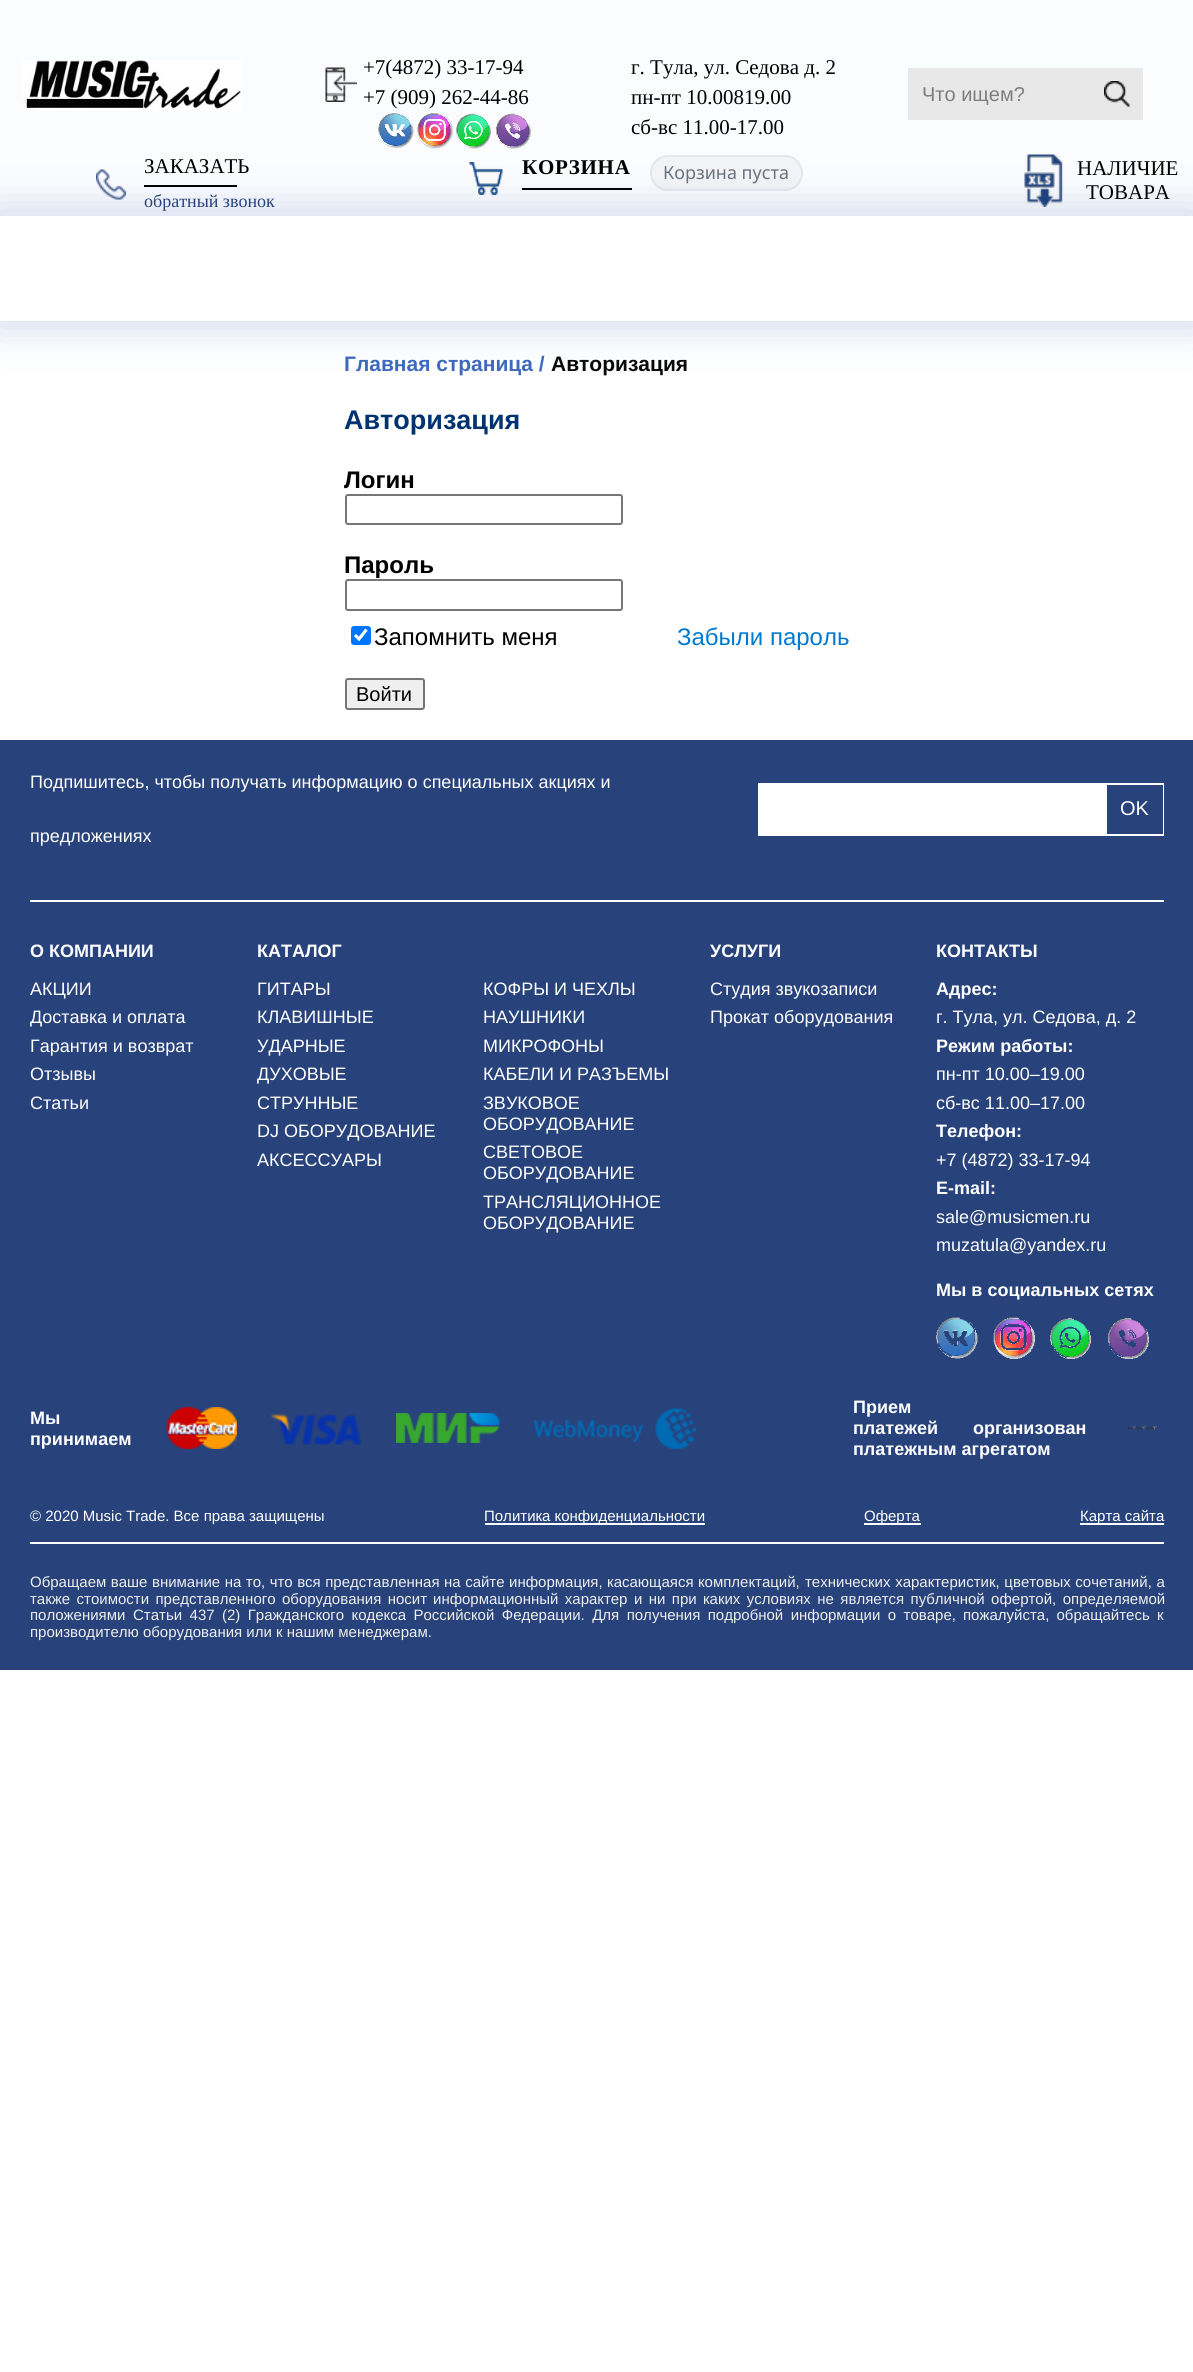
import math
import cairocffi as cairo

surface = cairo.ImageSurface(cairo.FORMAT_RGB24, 1193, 2372)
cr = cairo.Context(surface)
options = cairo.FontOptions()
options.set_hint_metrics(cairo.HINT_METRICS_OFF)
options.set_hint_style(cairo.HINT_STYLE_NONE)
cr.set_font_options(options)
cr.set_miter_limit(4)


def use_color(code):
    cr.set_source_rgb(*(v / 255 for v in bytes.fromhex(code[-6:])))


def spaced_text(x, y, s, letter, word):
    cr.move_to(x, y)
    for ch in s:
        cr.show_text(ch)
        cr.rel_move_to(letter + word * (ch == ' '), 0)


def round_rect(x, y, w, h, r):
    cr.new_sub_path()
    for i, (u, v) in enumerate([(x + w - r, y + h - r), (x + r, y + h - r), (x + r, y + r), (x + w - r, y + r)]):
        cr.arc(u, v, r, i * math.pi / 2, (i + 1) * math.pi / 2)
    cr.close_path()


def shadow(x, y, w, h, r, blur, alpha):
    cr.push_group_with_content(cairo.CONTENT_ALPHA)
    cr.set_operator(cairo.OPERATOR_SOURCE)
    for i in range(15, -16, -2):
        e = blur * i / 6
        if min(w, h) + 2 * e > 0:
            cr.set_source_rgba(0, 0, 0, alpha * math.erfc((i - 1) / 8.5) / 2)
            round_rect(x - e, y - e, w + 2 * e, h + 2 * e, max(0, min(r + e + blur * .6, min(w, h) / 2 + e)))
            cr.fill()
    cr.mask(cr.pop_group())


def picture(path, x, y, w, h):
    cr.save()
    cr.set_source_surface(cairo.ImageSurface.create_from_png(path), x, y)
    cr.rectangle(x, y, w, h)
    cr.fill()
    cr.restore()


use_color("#ffffff")
cr.paint()
use_color("#fbfcfe")
cr.rectangle(0, 0, 1193, 216)
cr.fill()
picture("img1.png", 23, 60, 218, 51)
picture("img2.png", 325, 67, 32, 35)
cr.select_font_face("Liberation Serif")
cr.set_font_size(21)
use_color("#000000")
cr.move_to(363, 74)
cr.show_text("+7(4872) 33-17-94")
cr.move_to(363, 104)
cr.show_text("+7 (909) 262-44-86")
picture("img3.png", 378, 113, 36, 35)
picture("img4.png", 417, 113, 36, 36)
picture("img5.png", 456, 113, 36, 36)
picture("img6.png", 496, 113, 35, 36)
cr.move_to(631, 74)
cr.show_text("г. Тула, ул. Седова д. 2")
cr.move_to(631, 104)
cr.show_text("пн-пт 10.00819.00")
cr.move_to(631, 134)
cr.show_text("сб-вс 11.00-17.00")
use_color("#e8e8e8")
cr.rectangle(908, 68, 235, 52)
cr.fill()
cr.select_font_face("Liberation Sans")
cr.set_font_size(20)
use_color("#7e7e7e")
cr.move_to(922, 101)
cr.show_text("Что ищем?")
picture("img7.png", 1104, 81, 26, 26)
picture("img8.png", 96, 169, 30, 31)
use_color("#010101")
cr.rectangle(144, 185, 93, 2)
cr.fill()
cr.select_font_face("Liberation Serif")
cr.set_font_size(21)
use_color("#000000")
cr.move_to(144, 173)
cr.show_text("ЗАКАЗАТЬ")
cr.set_font_size(18)
use_color("#28427b")
cr.move_to(144, 207)
cr.show_text("обратный звонок")
picture("img9.png", 469, 162, 34, 33)
use_color("#010101")
cr.rectangle(522, 188, 110, 2)
cr.fill()
cr.select_font_face("Liberation Serif", cairo.FONT_SLANT_NORMAL, cairo.FONT_WEIGHT_BOLD)
cr.set_font_size(21)
use_color("#000000")
spaced_text(522, 174, "КОРЗИНА", 0.75, 0)
use_color("#f3f4f6")
round_rect(651, 156, 151, 34, 17)
cr.fill_preserve()
use_color("#e5e7eb")
cr.stroke()
cr.select_font_face("Noto Sans")
cr.set_font_size(18)
use_color("#6b7280")
cr.move_to(663, 179)
cr.show_text("Корзина пуста")
picture("img10.png", 1024, 154, 39, 53)
cr.select_font_face("Liberation Serif")
cr.set_font_size(21)
use_color("#000000")
cr.move_to(1077, 175)
cr.show_text("НАЛИЧИЕ")
cr.move_to(1086, 199)
cr.show_text("ТОВАРА")
cr.save()
cr.set_fill_rule(cairo.FILL_RULE_EVEN_ODD)
cr.new_path()
cr.move_to(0, 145)
cr.line_to(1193, 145)
cr.line_to(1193, 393)
cr.line_to(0, 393)
cr.close_path()
cr.move_to(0, 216)
cr.line_to(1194, 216)
cr.line_to(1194, 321)
cr.line_to(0, 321)
cr.close_path()
cr.clip()
use_color("#2952aa")
shadow(-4, 212, 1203, 114, 0, 22, 0.23)
cr.restore()
cr.select_font_face("Liberation Sans", cairo.FONT_SLANT_NORMAL, cairo.FONT_WEIGHT_BOLD)
use_color("#3f69bf")
cr.move_to(344, 371)
cr.show_text("Главная страница /")
use_color("#0a0a0a")
cr.move_to(551, 371)
cr.show_text("Авторизация")
cr.set_font_size(27)
use_color("#003370")
cr.move_to(344, 429)
cr.show_text("Авторизация")
cr.set_font_size(24)
use_color("#000000")
cr.move_to(344, 488)
cr.show_text("Логин")
round_rect(346, 495, 276, 29, 2)
use_color("#767676")
cr.stroke()
use_color("#000000")
cr.move_to(344, 573)
cr.show_text("Пароль")
round_rect(346, 580, 276, 30, 2)
use_color("#767676")
cr.stroke()
use_color("#0075ff")
round_rect(351, 626, 20, 19, 3)
cr.fill()
cr.new_path()
cr.move_to(355, 635)
cr.line_to(359, 639)
cr.line_to(366.5, 629.5)
use_color("#ffffff")
cr.set_line_width(3.1)
cr.stroke()
cr.select_font_face("Liberation Sans")
use_color("#000000")
cr.move_to(374, 645)
cr.show_text("Запомнить меня")
use_color("#007acf")
cr.move_to(677, 645)
cr.show_text("Забыли пароль")
use_color("#efefef")
round_rect(346, 679, 78, 30, 2)
cr.fill_preserve()
use_color("#767676")
cr.set_line_width(2)
cr.stroke()
cr.set_font_size(20)
use_color("#000000")
cr.move_to(356, 701)
cr.show_text("Войти")
use_color("#28427b")
cr.rectangle(0, 740, 1193, 930)
cr.fill()
use_color("#ffffff")
cr.rectangle(30, 900, 1134, 2)
cr.fill()
cr.set_font_size(18)
cr.move_to(30, 788)
cr.show_text("Подпишитесь, чтобы получать информацию о специальных акциях и")
cr.move_to(30, 842)
cr.show_text("предложениях")
cr.rectangle(758, 783, 406, 53)
cr.fill()
use_color("#28427b")
cr.rectangle(1107, 785, 56, 49)
cr.fill()
cr.set_font_size(20)
use_color("#ffffff")
cr.move_to(1120, 815)
cr.show_text("OK")
cr.select_font_face("Liberation Sans", cairo.FONT_SLANT_NORMAL, cairo.FONT_WEIGHT_BOLD)
cr.set_font_size(18)
cr.move_to(30, 957)
cr.show_text("О КОМПАНИИ")
cr.select_font_face("Liberation Sans")
cr.move_to(30, 995)
cr.show_text("АКЦИИ")
cr.move_to(30, 1023)
cr.show_text("Доставка и оплата")
cr.move_to(30, 1052)
cr.show_text("Гарантия и возврат")
cr.move_to(30, 1080)
cr.show_text("Отзывы")
cr.move_to(30, 1109)
cr.show_text("Статьи")
cr.select_font_face("Liberation Sans", cairo.FONT_SLANT_NORMAL, cairo.FONT_WEIGHT_BOLD)
cr.move_to(257, 957)
cr.show_text("КАТАЛОГ")
cr.select_font_face("Liberation Sans")
cr.move_to(257, 995)
cr.show_text("ГИТАРЫ")
cr.move_to(257, 1023)
cr.show_text("КЛАВИШНЫЕ")
cr.move_to(257, 1052)
cr.show_text("УДАРНЫЕ")
cr.move_to(257, 1080)
cr.show_text("ДУХОВЫЕ")
cr.move_to(257, 1109)
cr.show_text("СТРУННЫЕ")
cr.move_to(257, 1137)
cr.show_text("DJ ОБОРУДОВАНИЕ")
cr.move_to(257, 1166)
cr.show_text("АКСЕССУАРЫ")
cr.move_to(483, 995)
cr.show_text("КОФРЫ И ЧЕХЛЫ")
cr.move_to(483, 1023)
cr.show_text("НАУШНИКИ")
cr.move_to(483, 1052)
cr.show_text("МИКРОФОНЫ")
cr.move_to(483, 1080)
cr.show_text("КАБЕЛИ И РАЗЪЕМЫ")
cr.move_to(483, 1109)
cr.show_text("ЗВУКОВОЕ")
cr.move_to(483, 1130)
cr.show_text("ОБОРУДОВАНИЕ")
cr.move_to(483, 1158)
cr.show_text("СВЕТОВОЕ")
cr.move_to(483, 1179)
cr.show_text("ОБОРУДОВАНИЕ")
cr.move_to(483, 1208)
cr.show_text("ТРАНСЛЯЦИОННОЕ")
cr.move_to(483, 1229)
cr.show_text("ОБОРУДОВАНИЕ")
cr.select_font_face("Liberation Sans", cairo.FONT_SLANT_NORMAL, cairo.FONT_WEIGHT_BOLD)
cr.move_to(710, 957)
cr.show_text("УСЛУГИ")
cr.select_font_face("Liberation Sans")
cr.move_to(710, 995)
cr.show_text("Студия звукозаписи")
cr.move_to(710, 1023)
cr.show_text("Прокат оборудования")
cr.select_font_face("Liberation Sans", cairo.FONT_SLANT_NORMAL, cairo.FONT_WEIGHT_BOLD)
cr.move_to(936, 957)
cr.show_text("КОНТАКТЫ")
cr.move_to(936, 995)
cr.show_text("Адрес:")
cr.select_font_face("Liberation Sans")
cr.move_to(936, 1023)
cr.show_text("г. Тула, ул. Седова, д. 2")
cr.select_font_face("Liberation Sans", cairo.FONT_SLANT_NORMAL, cairo.FONT_WEIGHT_BOLD)
cr.move_to(936, 1052)
cr.show_text("Режим работы:")
cr.select_font_face("Liberation Sans")
cr.move_to(936, 1080)
cr.show_text("пн-пт 10.00–19.00")
cr.move_to(936, 1109)
cr.show_text("сб-вс 11.00–17.00")
cr.select_font_face("Liberation Sans", cairo.FONT_SLANT_NORMAL, cairo.FONT_WEIGHT_BOLD)
cr.move_to(936, 1137)
cr.show_text("Телефон:")
cr.select_font_face("Liberation Sans")
cr.move_to(936, 1166)
cr.show_text("+7 (4872) 33-17-94")
cr.select_font_face("Liberation Sans", cairo.FONT_SLANT_NORMAL, cairo.FONT_WEIGHT_BOLD)
cr.move_to(936, 1194)
cr.show_text("E-mail:")
cr.select_font_face("Liberation Sans")
cr.move_to(936, 1223)
cr.show_text("sale@musicmen.ru")
cr.move_to(936, 1251)
cr.show_text("muzatula@yandex.ru")
cr.select_font_face("Liberation Sans", cairo.FONT_SLANT_NORMAL, cairo.FONT_WEIGHT_BOLD)
cr.move_to(936, 1296)
cr.show_text("Мы в социальных сетях")
picture("img11.png", 936, 1317, 42, 42)
picture("img12.png", 993, 1317, 42, 42)
picture("img13.png", 1050, 1318, 42, 41)
picture("img14.png", 1108, 1318, 41, 41)
cr.rectangle(30, 1542, 1134, 2)
cr.fill()
cr.move_to(30, 1424)
cr.show_text("Мы")
cr.move_to(30, 1445)
cr.show_text("принимаем")
picture("img15.png", 166, 1407, 71, 42)
picture("img16.png", 271, 1414, 91, 31)
picture("img17.png", 396, 1413, 104, 30)
picture("img18.png", 534, 1408, 162, 41)
cr.move_to(853, 1413)
cr.show_text("Прием")
cr.move_to(853, 1434)
cr.show_text("платежей")
cr.move_to(973, 1434)
cr.show_text("организован")
cr.move_to(853, 1455)
cr.show_text("платежным агрегатом")
picture("img19.png", 1128, 1426, 29, 5)
cr.select_font_face("Liberation Sans")
cr.set_font_size(15)
cr.move_to(30, 1521)
cr.show_text("© 2020 Music Trade. Все права защищены")
cr.rectangle(485, 1523, 220, 2)
cr.fill()
cr.move_to(484, 1521)
cr.show_text("Политика конфиденциальности")
cr.rectangle(864, 1523, 57, 2)
cr.fill()
cr.move_to(864, 1521)
cr.show_text("Оферта")
cr.rectangle(1080, 1523, 84, 2)
cr.fill()
cr.move_to(1080, 1521)
cr.show_text("Карта сайта")
use_color("#eeeeee")
spaced_text(30, 1587, "Обращаем ваше внимание на то, что вся представленная на сайте информация, касающаяся комплектаций,", 0, 0.3)
spaced_text(805, 1587, "технических характеристик, цветовых сочетаний, а", 0, 0.5)
spaced_text(30, 1604, "также стоимости представленного оборудования носит", 0, 2.25)
spaced_text(433, 1604, "информационный характер и ни при каких условиях не является публичной офертой, определяемой", 0, 2.25)
cr.move_to(30, 1620)
cr.show_text("положениями")
spaced_text(133, 1620, "Статьи 437 (2) Гражданского кодекса Российской Федерации. Для получения подробной информации о товаре,", 0, 3.25)
spaced_text(963, 1620, "пожалуйста, обращайтесь к", 0, 3)
cr.move_to(30, 1637)
cr.show_text("производителю оборудования или к нашим менеджерам.")
surface.write_to_png("result.png")
